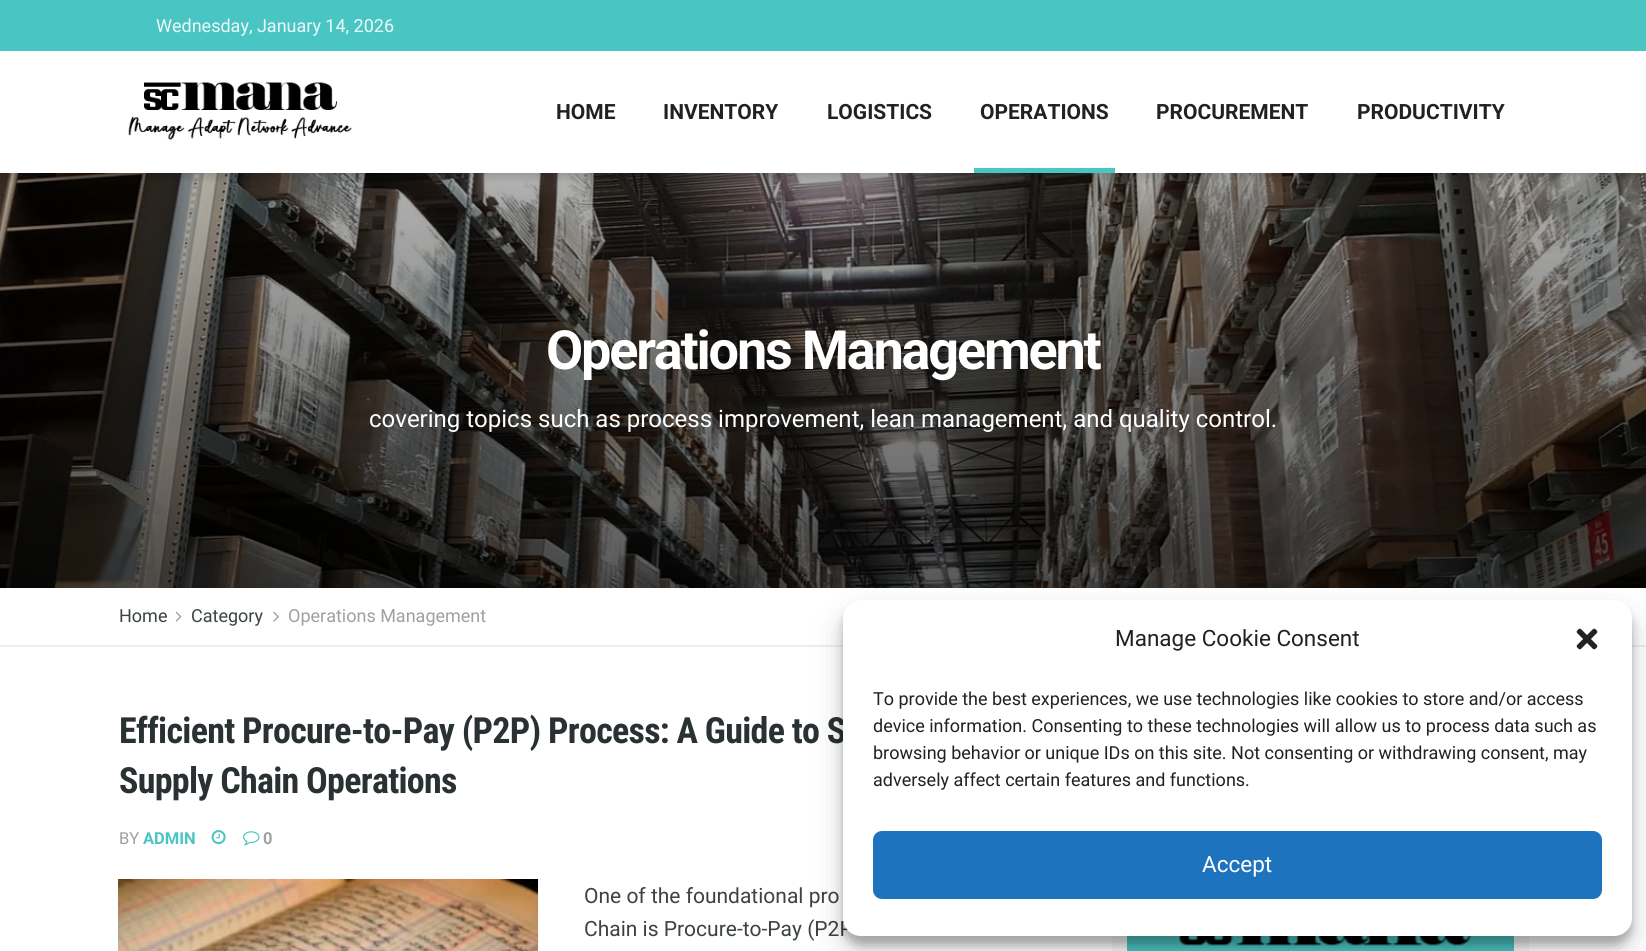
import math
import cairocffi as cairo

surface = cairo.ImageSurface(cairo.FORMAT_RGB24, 1646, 951)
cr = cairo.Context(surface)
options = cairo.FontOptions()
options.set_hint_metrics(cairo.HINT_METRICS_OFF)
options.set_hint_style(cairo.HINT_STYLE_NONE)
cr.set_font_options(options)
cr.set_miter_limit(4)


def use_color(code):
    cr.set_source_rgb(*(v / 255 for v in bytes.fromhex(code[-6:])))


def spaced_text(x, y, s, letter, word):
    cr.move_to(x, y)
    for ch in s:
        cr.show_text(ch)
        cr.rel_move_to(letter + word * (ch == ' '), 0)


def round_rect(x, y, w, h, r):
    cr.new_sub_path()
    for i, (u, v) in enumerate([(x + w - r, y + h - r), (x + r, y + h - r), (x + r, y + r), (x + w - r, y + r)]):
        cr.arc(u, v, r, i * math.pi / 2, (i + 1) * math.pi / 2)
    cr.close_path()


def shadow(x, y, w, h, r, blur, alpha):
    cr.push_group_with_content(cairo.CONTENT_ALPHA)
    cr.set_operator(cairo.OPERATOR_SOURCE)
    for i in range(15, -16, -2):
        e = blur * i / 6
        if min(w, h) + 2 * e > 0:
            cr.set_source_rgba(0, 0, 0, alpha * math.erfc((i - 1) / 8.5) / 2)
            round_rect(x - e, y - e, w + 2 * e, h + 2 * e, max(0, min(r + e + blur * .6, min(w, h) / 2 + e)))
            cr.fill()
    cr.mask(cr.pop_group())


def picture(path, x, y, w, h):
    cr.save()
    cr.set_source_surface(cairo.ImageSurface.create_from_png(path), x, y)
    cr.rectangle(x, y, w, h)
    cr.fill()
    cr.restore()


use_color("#ffffff")
cr.paint()
use_color("#49c5c4")
cr.rectangle(0, 0, 1646, 51)
cr.fill()
cr.select_font_face("Roboto")
cr.set_font_size(18)
use_color("#eef9f9")
cr.move_to(156, 32)
cr.show_text("Wednesday, January 14, 2026")
picture("img1.png", 128, 82, 224, 58)
cr.select_font_face("Roboto", cairo.FONT_SLANT_NORMAL, cairo.FONT_WEIGHT_BOLD)
cr.set_font_size(21)
use_color("#212121")
cr.move_to(556, 119)
cr.show_text("HOME")
cr.move_to(663, 119)
cr.show_text("INVENTORY")
cr.move_to(827, 119)
cr.show_text("LOGISTICS")
cr.move_to(980, 119)
cr.show_text("OPERATIONS")
use_color("#49c5c4")
cr.rectangle(974, 168, 141, 5)
cr.fill()
use_color("#212121")
cr.move_to(1156, 119)
cr.show_text("PROCUREMENT")
cr.move_to(1357, 119)
cr.show_text("PRODUCTIVITY")
picture("img2.png", 0, 173, 1646, 415)
cr.set_font_size(54)
use_color("#ffffff")
spaced_text(546, 369, "Operations Management", -2.2, 0)
cr.select_font_face("Roboto")
cr.set_font_size(24)
cr.move_to(369, 427)
cr.show_text("covering topics such as process improvement, lean management, and quality control.")
use_color("#eeeeee")
cr.rectangle(0, 645, 1646, 2)
cr.fill()
cr.set_font_size(18)
use_color("#3c4344")
cr.move_to(119, 622)
cr.show_text("Home")
picture("img3.png", 175, 611, 7, 11)
cr.move_to(191, 622)
cr.show_text("Category")
picture("img4.png", 273, 611, 6, 11)
use_color("#a0a0a0")
cr.move_to(288, 622)
cr.show_text("Operations Management")
cr.select_font_face("Roboto Condensed", cairo.FONT_SLANT_NORMAL, cairo.FONT_WEIGHT_BOLD)
cr.set_font_size(36)
use_color("#293132")
spaced_text(119, 743, "Efficient Procure-to-Pay (P2P) Process: A Guide to S", -0.72, 0)
spaced_text(119, 793, "Supply Chain Operations", -0.72, 0)
cr.select_font_face("Roboto")
cr.set_font_size(16.5)
use_color("#a0a0a0")
cr.move_to(119, 844)
cr.show_text("BY")
cr.select_font_face("Roboto", cairo.FONT_SLANT_NORMAL, cairo.FONT_WEIGHT_BOLD)
use_color("#49c5c4")
cr.move_to(143, 844)
cr.show_text("ADMIN")
picture("img5.png", 211, 830, 15, 15)
picture("img6.png", 243, 831, 17, 15)
use_color("#a0a0a0")
cr.move_to(263, 844)
cr.show_text("0")
use_color("#f7f7f7")
cr.rectangle(538, 879, 1, 72)
cr.fill()
picture("img7.png", 118, 879, 420, 72)
cr.select_font_face("Roboto")
cr.set_font_size(21)
use_color("#3c4344")
cr.move_to(584, 903)
cr.show_text("One of the foundational pro")
cr.move_to(584, 936)
cr.show_text("Chain is Procure-to-Pay (P2P")
use_color("#49c5c4")
cr.rectangle(1127, 936, 387, 15)
cr.fill()
cr.rectangle(1119.5, 868.5, 402, 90)
use_color("#f7f7f7")
cr.set_line_width(15)
cr.stroke()
picture("img8.png", 1179, 936, 293, 10)
use_color("#000000")
shadow(843, 609, 789, 336, 18, 4.5, 0.23)
shadow(843, 615, 789, 336, 18, 15, 0.19)
use_color("#ffffff")
round_rect(843, 600, 789, 336, 18)
cr.fill()
cr.set_font_size(22.5)
use_color("#212121")
cr.move_to(1115, 646)
cr.show_text("Manage Cookie Consent")
picture("img9.png", 1576, 628, 22, 22)
cr.set_font_size(18)
cr.move_to(873, 705)
cr.show_text("To provide the best experiences, we use technologies like cookies to store and/or access")
cr.move_to(873, 732)
cr.show_text("device information. Consenting to these technologies will allow us to process data such as")
cr.move_to(873, 759)
cr.show_text("browsing behavior or unique IDs on this site. Not consenting or withdrawing consent, may")
cr.move_to(873, 786)
cr.show_text("adversely affect certain features and functions.")
use_color("#1e73be")
round_rect(874, 832, 727, 66, 8)
cr.fill_preserve()
cr.set_line_width(2)
cr.stroke()
cr.set_font_size(22.5)
use_color("#ffffff")
cr.move_to(1202, 872)
cr.show_text("Accept")
surface.write_to_png("result.png")
